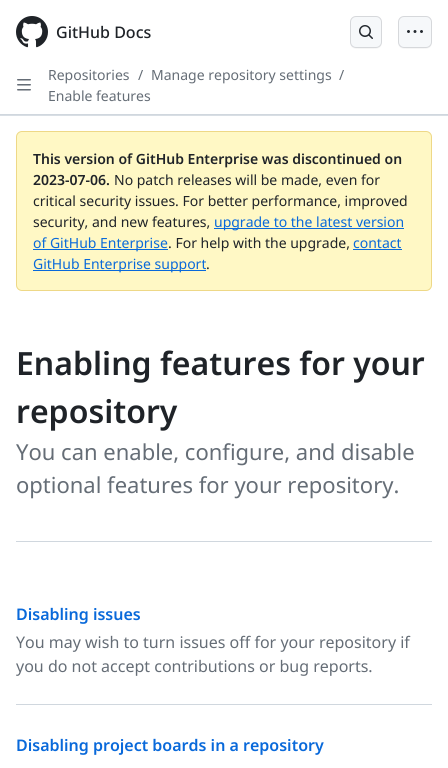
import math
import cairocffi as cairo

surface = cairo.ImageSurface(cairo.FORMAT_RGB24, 448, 768)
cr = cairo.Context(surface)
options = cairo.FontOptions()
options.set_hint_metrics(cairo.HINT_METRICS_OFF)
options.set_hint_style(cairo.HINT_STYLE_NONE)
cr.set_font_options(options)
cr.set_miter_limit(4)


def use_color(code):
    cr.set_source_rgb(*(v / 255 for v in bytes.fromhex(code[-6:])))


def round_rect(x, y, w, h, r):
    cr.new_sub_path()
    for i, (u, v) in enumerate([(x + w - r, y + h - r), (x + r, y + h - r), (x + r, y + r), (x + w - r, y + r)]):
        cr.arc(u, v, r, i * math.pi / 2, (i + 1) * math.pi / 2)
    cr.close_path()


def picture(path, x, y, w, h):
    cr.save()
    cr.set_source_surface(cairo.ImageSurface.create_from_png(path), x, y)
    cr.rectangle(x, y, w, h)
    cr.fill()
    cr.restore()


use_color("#ffffff")
cr.paint()
use_color("#d8dee4")
cr.rectangle(0, 115, 448, 1)
cr.fill()
use_color("#d0d7de")
cr.rectangle(0, 114, 448, 1)
cr.fill()
picture("img1.png", 16, 16, 32, 32)
cr.select_font_face("Noto Sans Medium")
cr.set_font_size(16)
use_color("#1f2328")
cr.move_to(56, 38)
cr.show_text("GitHub Docs")
use_color("#f6f6f6")
cr.new_path()
cr.move_to(350, 42)
cr.curve_to(350, 48.5, 354, 49, 359.5, 49)
cr.line_to(372.5, 49)
cr.curve_to(378, 49, 382, 48.5, 382, 42)
cr.curve_to(382, 45.5, 379.5, 48, 376, 48)
cr.line_to(356, 48)
cr.curve_to(352.5, 48, 350, 45.5, 350, 42)
cr.close_path()
cr.fill()
use_color("#f6f8fa")
round_rect(350.5, 16.5, 31, 31, 5.5)
cr.fill_preserve()
use_color("#d6d8db")
cr.set_line_width(1)
cr.stroke()
picture("img2.png", 359, 25, 14, 14)
use_color("#f6f6f6")
cr.new_path()
cr.move_to(398, 42)
cr.curve_to(398, 48.5, 402, 49, 407.5, 49)
cr.line_to(422.5, 49)
cr.curve_to(428, 49, 432, 48.5, 432, 42)
cr.curve_to(432, 45.5, 429.5, 48, 426, 48)
cr.line_to(404, 48)
cr.curve_to(400.5, 48, 398, 45.5, 398, 42)
cr.close_path()
cr.fill()
use_color("#f6f8fa")
round_rect(398.5, 16.5, 33, 31, 5.5)
cr.fill_preserve()
use_color("#d6d8db")
cr.stroke()
picture("img3.png", 407, 30, 16, 3)
picture("img4.png", 17, 79, 14, 12)
cr.select_font_face("Noto Sans")
cr.set_font_size(14)
use_color("#656d76")
cr.move_to(48, 80)
cr.show_text("Repositories")
cr.move_to(138, 80)
cr.show_text("/")
cr.move_to(151, 80)
cr.show_text("Manage repository settings")
cr.move_to(339, 80)
cr.show_text("/")
cr.move_to(48, 101)
cr.show_text("Enable features")
use_color("#fff8c5")
round_rect(16, 131, 416, 160, 6)
cr.fill()
round_rect(16.5, 131.5, 415, 159, 5.5)
cr.set_source_rgba(0.831, 0.655, 0.173, 0.4)
cr.stroke()
cr.select_font_face("Noto Sans SemiBold")
use_color("#1f2328")
cr.move_to(33, 164)
cr.show_text("This version of GitHub Enterprise was discontinued on")
cr.move_to(33, 185)
cr.show_text("2023-07-06.")
cr.select_font_face("Noto Sans")
cr.move_to(114, 185)
cr.show_text("No patch releases will be made, even for")
cr.move_to(33, 206)
cr.show_text("critical security issues. For better performance, improved")
cr.move_to(33, 227)
cr.show_text("security, and new features,")
use_color("#0969da")
cr.rectangle(214, 228, 190, 1)
cr.fill()
cr.move_to(214, 227)
cr.show_text("upgrade to the latest version")
cr.rectangle(33, 249, 135, 1)
cr.fill()
cr.move_to(33, 248)
cr.show_text("of GitHub Enterprise")
use_color("#1f2328")
cr.move_to(168, 248)
cr.show_text(". For help with the upgrade,")
use_color("#0969da")
cr.move_to(353, 248)
cr.show_text("contact")
cr.rectangle(353, 249, 49, 1)
cr.fill()
cr.rectangle(33, 270, 173, 1)
cr.fill()
cr.move_to(33, 269)
cr.show_text("GitHub Enterprise support")
use_color("#1f2328")
cr.move_to(206, 269)
cr.show_text(".")
cr.select_font_face("Noto Sans SemiBold")
cr.set_font_size(32)
cr.move_to(16, 375)
cr.show_text("Enabling features for your")
cr.move_to(16, 423)
cr.show_text("repository")
cr.select_font_face("Noto Sans")
cr.set_font_size(22)
use_color("#656d76")
cr.move_to(16, 460)
cr.show_text("You can enable, configure, and disable")
cr.move_to(16, 493)
cr.show_text("optional features for your repository.")
use_color("#d0d7de")
cr.rectangle(16, 541, 416, 1)
cr.fill()
cr.rectangle(16, 704, 416, 1)
cr.fill()
cr.select_font_face("Noto Sans SemiBold")
cr.set_font_size(16)
use_color("#0969da")
cr.move_to(16, 620)
cr.show_text("Disabling issues")
cr.select_font_face("Noto Sans")
use_color("#656d76")
cr.move_to(16, 648)
cr.show_text("You may wish to turn issues off for your repository if")
cr.move_to(16, 672)
cr.show_text("you do not accept contributions or bug reports.")
cr.select_font_face("Noto Sans SemiBold")
use_color("#0969da")
cr.move_to(16, 751)
cr.show_text("Disabling project boards in a repository")
surface.write_to_png("result.png")
